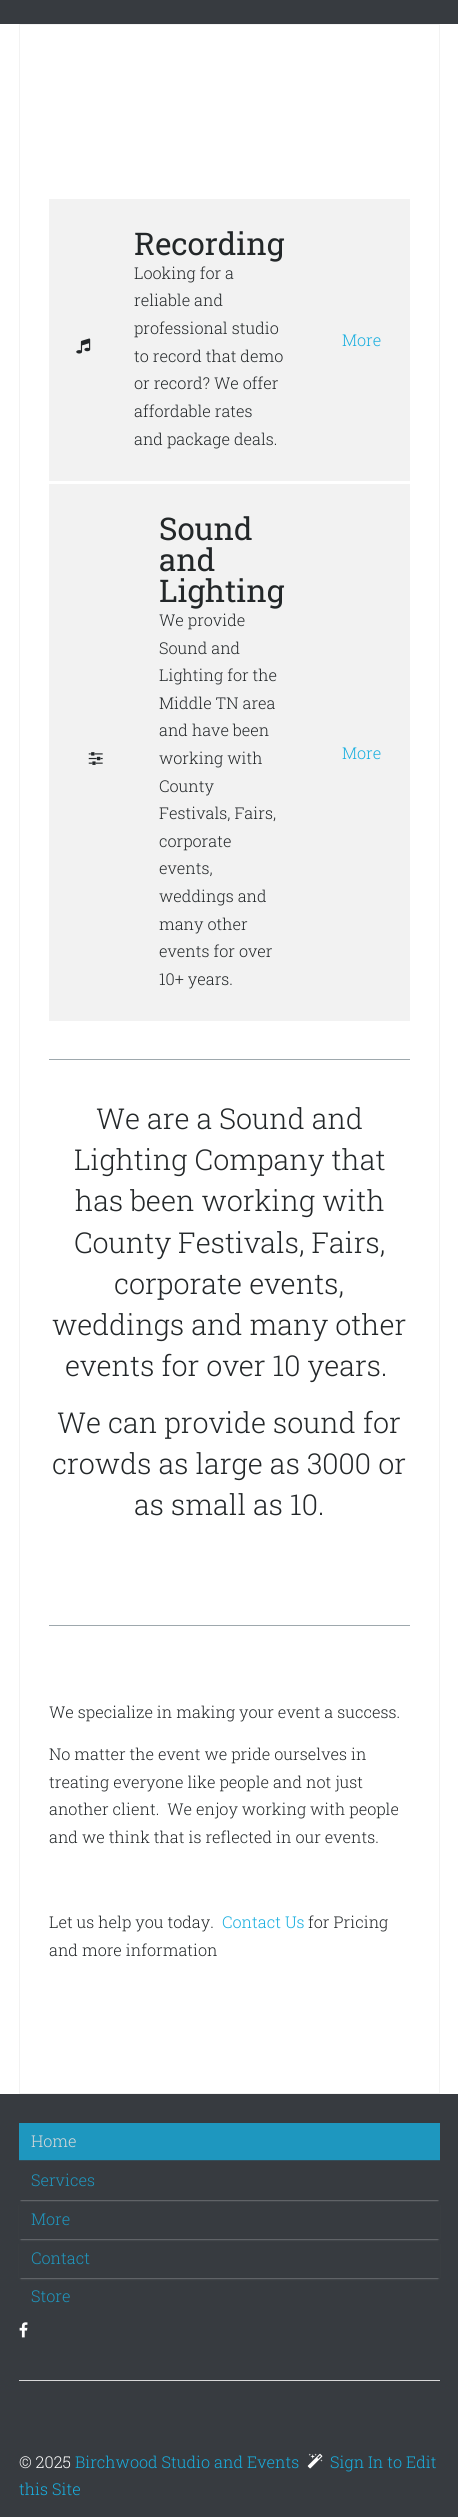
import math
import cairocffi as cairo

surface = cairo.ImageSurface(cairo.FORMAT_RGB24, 458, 2517)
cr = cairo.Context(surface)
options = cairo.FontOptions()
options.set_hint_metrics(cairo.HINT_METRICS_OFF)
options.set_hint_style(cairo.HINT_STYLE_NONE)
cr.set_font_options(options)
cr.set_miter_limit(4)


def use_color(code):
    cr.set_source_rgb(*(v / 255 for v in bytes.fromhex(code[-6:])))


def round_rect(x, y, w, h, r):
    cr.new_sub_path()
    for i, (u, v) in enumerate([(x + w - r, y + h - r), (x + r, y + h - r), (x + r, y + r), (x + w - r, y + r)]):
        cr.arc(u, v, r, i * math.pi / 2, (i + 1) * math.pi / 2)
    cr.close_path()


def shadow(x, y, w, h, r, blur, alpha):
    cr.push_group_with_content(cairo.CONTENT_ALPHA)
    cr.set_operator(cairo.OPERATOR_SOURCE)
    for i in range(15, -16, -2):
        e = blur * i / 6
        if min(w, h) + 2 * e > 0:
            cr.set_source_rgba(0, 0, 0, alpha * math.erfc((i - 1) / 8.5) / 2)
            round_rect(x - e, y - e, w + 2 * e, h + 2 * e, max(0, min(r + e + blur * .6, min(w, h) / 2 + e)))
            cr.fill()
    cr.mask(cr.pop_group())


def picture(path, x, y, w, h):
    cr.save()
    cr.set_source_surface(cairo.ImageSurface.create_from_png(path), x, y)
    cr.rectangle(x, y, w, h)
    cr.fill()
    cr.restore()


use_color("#ffffff")
cr.paint()
use_color("#373b40")
cr.rectangle(0, 0, 458, 24)
cr.fill()
cr.rectangle(19.5, 24.5, 420, 2069)
use_color("#f2f2f2")
cr.set_line_width(1)
cr.stroke()
cr.rectangle(49, 199, 361, 282)
cr.fill()
picture("img1.png", 76, 338, 15, 16)
cr.select_font_face("Roboto Slab")
cr.set_font_size(31.25)
use_color("#232729")
cr.move_to(134, 255)
cr.show_text("Recording")
cr.select_font_face("Roboto Slab Light")
cr.set_font_size(16.25)
cr.move_to(134, 279)
cr.show_text("Looking for a")
cr.move_to(134, 306)
cr.show_text("reliable and")
cr.move_to(134, 334)
cr.show_text("professional studio")
cr.move_to(134, 362)
cr.show_text("to record that demo")
cr.move_to(134, 389)
cr.show_text("or record? We offer")
cr.move_to(134, 417)
cr.show_text("affordable rates")
cr.move_to(134, 445)
cr.show_text("and package deals.")
use_color("#18aedf")
cr.move_to(342, 346)
cr.show_text("More")
use_color("#f2f2f2")
cr.rectangle(49, 484, 361, 537)
cr.fill()
picture("img2.png", 88, 752, 15, 13)
cr.select_font_face("Roboto Slab")
cr.set_font_size(31.25)
use_color("#232729")
cr.move_to(159, 540)
cr.show_text("Sound")
cr.move_to(159, 571)
cr.show_text("and")
cr.move_to(159, 602)
cr.show_text("Lighting")
cr.select_font_face("Roboto Slab Light")
cr.set_font_size(16.25)
cr.move_to(159, 626)
cr.show_text("We provide")
cr.move_to(159, 654)
cr.show_text("Sound and")
cr.move_to(159, 681)
cr.show_text("Lighting for the")
cr.move_to(159, 709)
cr.show_text("Middle TN area")
cr.move_to(159, 736)
cr.show_text("and have been")
cr.move_to(159, 764)
cr.show_text("working with")
cr.move_to(159, 792)
cr.show_text("County")
cr.move_to(159, 819)
cr.show_text("Festivals, Fairs,")
cr.move_to(159, 847)
cr.show_text("corporate")
cr.move_to(159, 874)
cr.show_text("events,")
cr.move_to(159, 902)
cr.show_text("weddings and")
cr.move_to(159, 930)
cr.show_text("many other")
cr.move_to(159, 957)
cr.show_text("events for over")
cr.move_to(159, 985)
cr.show_text("10+ years.")
use_color("#18aedf")
cr.move_to(342, 759)
cr.show_text("More")
use_color("#9ea8ad")
cr.rectangle(49, 1059, 361, 1)
cr.fill()
cr.set_font_size(28.75)
use_color("#232729")
cr.move_to(96, 1129)
cr.show_text("We are a Sound and")
cr.move_to(74, 1170)
cr.show_text("Lighting Company that")
cr.move_to(75, 1211)
cr.show_text("has been working with")
cr.move_to(74, 1253)
cr.show_text("County Festivals, Fairs,")
cr.move_to(114, 1294)
cr.show_text("corporate events,")
cr.move_to(52, 1335)
cr.show_text("weddings and many other")
cr.move_to(65, 1376)
cr.show_text("events for over 10 years.")
cr.move_to(57, 1433)
cr.show_text("We can provide sound for")
cr.move_to(52, 1474)
cr.show_text("crowds as large as 3000 or")
cr.move_to(134, 1515)
cr.show_text("as small as 10.")
use_color("#9ea8ad")
cr.rectangle(49, 1625, 361, 1)
cr.fill()
cr.set_font_size(16.25)
use_color("#232729")
cr.move_to(49, 1718)
cr.show_text("We specialize in making your event a success.")
cr.move_to(49, 1760)
cr.show_text("No matter the event we pride ourselves in")
cr.move_to(49, 1788)
cr.show_text("treating everyone like people and not just")
cr.move_to(49, 1815)
cr.show_text("another client.  We enjoy working with people")
cr.move_to(49, 1843)
cr.show_text("and we think that is reflected in our events.")
cr.move_to(49, 1928)
cr.show_text("Let us help you today.")
use_color("#18aedf")
cr.move_to(222, 1928)
cr.show_text("Contact Us")
use_color("#232729")
cr.move_to(308, 1928)
cr.show_text("for Pricing")
cr.move_to(49, 1956)
cr.show_text("and more information")
use_color("#373b40")
cr.rectangle(0, 2094, 458, 423)
cr.fill()
use_color("#1e97bf")
cr.rectangle(19, 2123, 421, 37)
cr.fill()
use_color("#324d59")
cr.rectangle(19, 2160, 421, 1)
cr.fill()
use_color("#d7d8d9")
cr.move_to(31, 2147)
cr.show_text("Home")
cr.save()
cr.rectangle(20, 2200, 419, 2)
cr.clip()
use_color("#cdcdce")
shadow(21, 2166, 417, 34, 0, 1, 0.8)
cr.restore()
use_color("#1e97bf")
cr.move_to(31, 2186)
cr.show_text("Services")
cr.save()
cr.set_fill_rule(cairo.FILL_RULE_EVEN_ODD)
cr.new_path()
cr.move_to(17, 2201)
cr.line_to(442, 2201)
cr.line_to(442, 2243)
cr.line_to(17, 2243)
cr.close_path()
cr.move_to(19, 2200)
cr.line_to(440, 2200)
cr.line_to(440, 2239)
cr.line_to(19, 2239)
cr.close_path()
cr.clip()
use_color("#cdcdce")
shadow(21, 2205, 417, 34, 0, 1, 0.8)
cr.restore()
cr.set_source_rgba(0.216, 0.231, 0.251, 0.8)
cr.rectangle(19, 2238, 421, 1)
cr.fill()
use_color("#1e97bf")
cr.move_to(31, 2225)
cr.show_text("More")
cr.save()
cr.set_fill_rule(cairo.FILL_RULE_EVEN_ODD)
cr.new_path()
cr.move_to(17, 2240)
cr.line_to(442, 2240)
cr.line_to(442, 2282)
cr.line_to(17, 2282)
cr.close_path()
cr.move_to(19, 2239)
cr.line_to(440, 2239)
cr.line_to(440, 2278)
cr.line_to(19, 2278)
cr.close_path()
cr.clip()
use_color("#cdcdce")
shadow(21, 2244, 417, 34, 0, 1, 0.8)
cr.restore()
cr.move_to(31, 2264)
cr.show_text("Contact")
cr.move_to(31, 2302)
cr.show_text("Store")
picture("img3.png", 19, 2322, 9, 16)
use_color("#d7d8d9")
cr.rectangle(19, 2380, 421, 1)
cr.fill()
use_color("#ffffff")
cr.move_to(19, 2468)
cr.show_text("© 2025")
use_color("#18aedf")
cr.move_to(75, 2468)
cr.show_text("Birchwood Studio and Events")
picture("img4.png", 307, 2453, 16, 16)
cr.move_to(330, 2468)
cr.show_text("Sign In to Edit")
cr.move_to(19, 2495)
cr.show_text("this Site")
surface.write_to_png("result.png")
